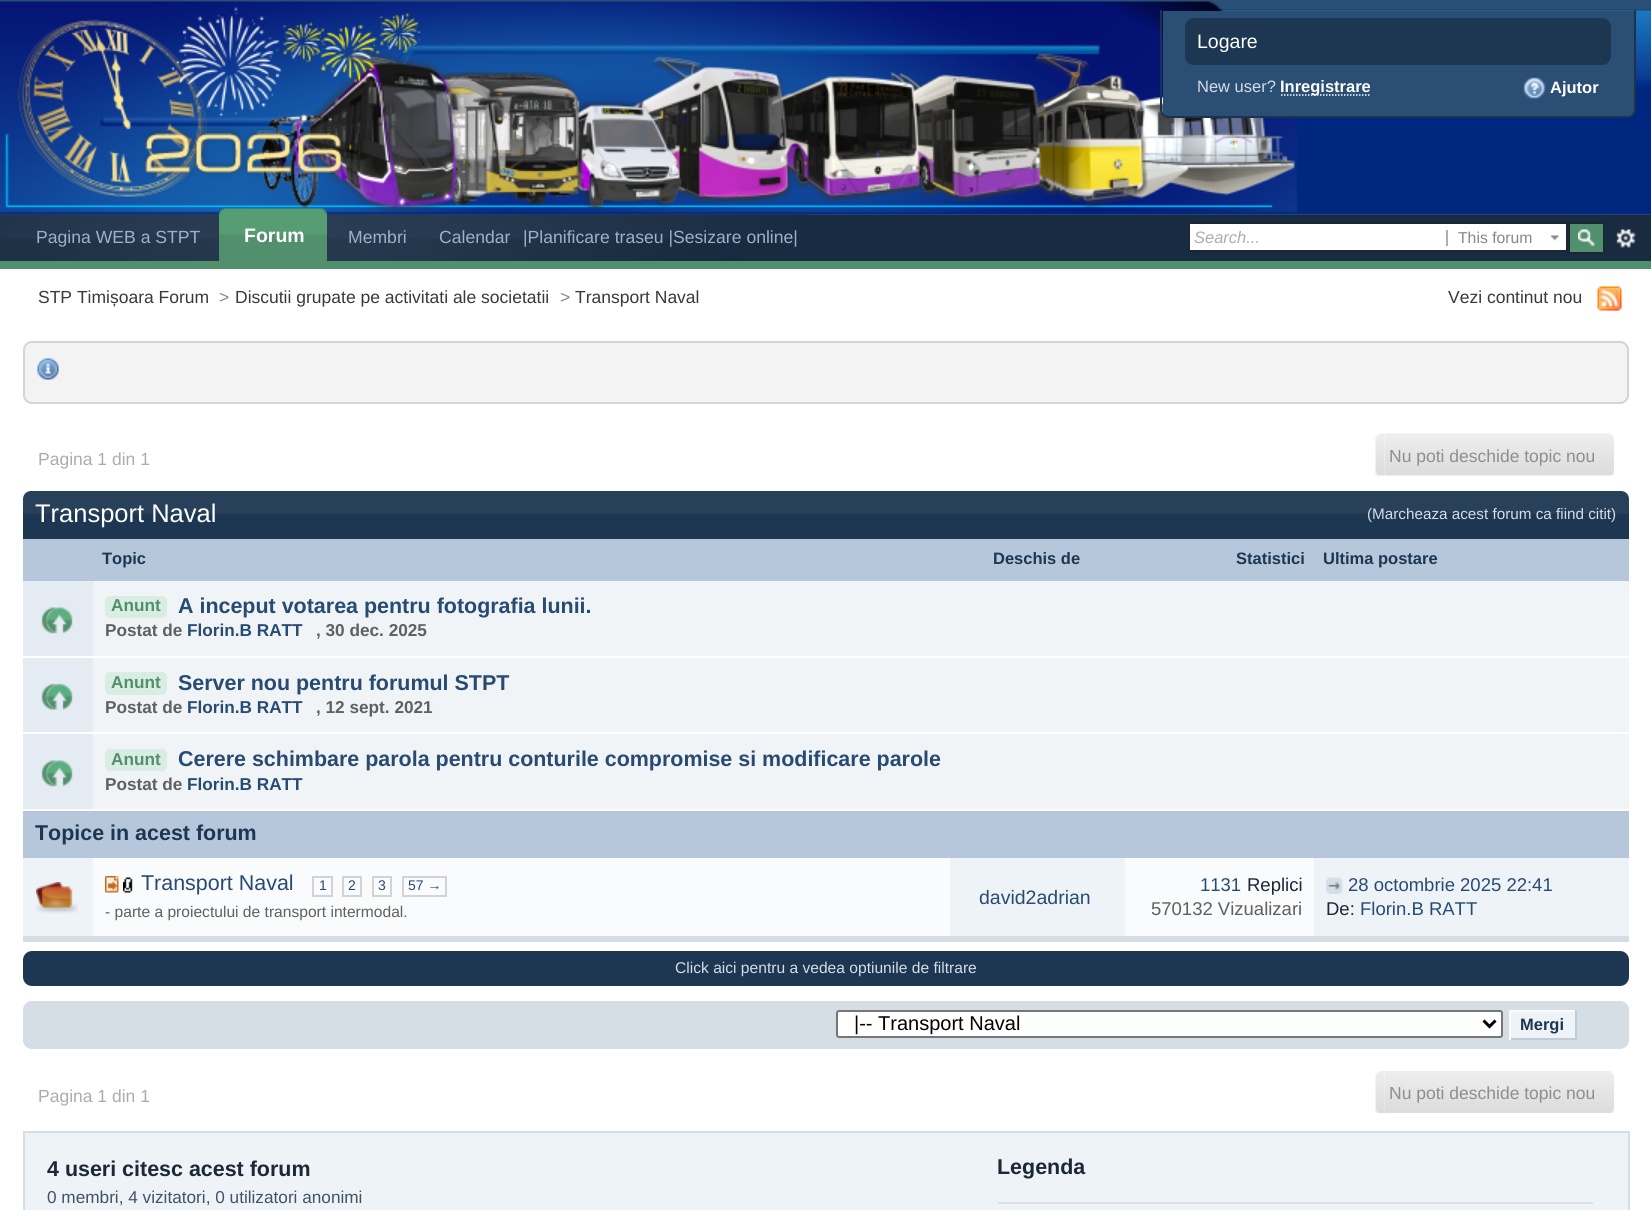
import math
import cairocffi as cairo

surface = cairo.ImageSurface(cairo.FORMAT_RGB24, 1651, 1210)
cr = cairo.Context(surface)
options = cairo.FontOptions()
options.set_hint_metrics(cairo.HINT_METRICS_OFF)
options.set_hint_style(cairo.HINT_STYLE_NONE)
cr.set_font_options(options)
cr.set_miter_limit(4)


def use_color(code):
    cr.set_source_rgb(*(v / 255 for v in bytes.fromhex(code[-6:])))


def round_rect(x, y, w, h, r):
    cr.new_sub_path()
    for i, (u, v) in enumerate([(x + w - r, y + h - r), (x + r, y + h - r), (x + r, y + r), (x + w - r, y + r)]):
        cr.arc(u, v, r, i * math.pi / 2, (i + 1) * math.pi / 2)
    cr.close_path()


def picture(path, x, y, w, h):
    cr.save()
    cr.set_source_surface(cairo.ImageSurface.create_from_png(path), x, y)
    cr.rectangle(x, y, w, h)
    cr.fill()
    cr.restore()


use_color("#ffffff")
cr.paint()
use_color("#1d3652")
cr.rectangle(0, 214, 1651, 1)
cr.fill()
picture("img1.png", 0, 0, 1651, 215)
picture("img2.png", 0, 1, 1298, 213)
use_color("#2b4f74")
cr.new_path()
cr.move_to(1163, 11)
cr.line_to(1634, 11)
cr.line_to(1634, 110)
cr.curve_to(1634, 113.5, 1631.5, 116, 1628, 116)
cr.line_to(1169, 116)
cr.curve_to(1165.5, 116, 1163, 113.5, 1163, 110)
cr.close_path()
cr.fill()
use_color("#1c334e")
cr.set_fill_rule(cairo.FILL_RULE_EVEN_ODD)
cr.new_path()
cr.move_to(1160, 10)
cr.line_to(1636, 10)
cr.line_to(1636, 110)
cr.curve_to(1636, 114, 1632, 118, 1628, 118)
cr.line_to(1168, 118)
cr.curve_to(1164, 118, 1160, 114, 1160, 110)
cr.close_path()
cr.move_to(1162, 10)
cr.line_to(1634, 10)
cr.line_to(1634, 110)
cr.curve_to(1634, 113, 1631, 116, 1628, 116)
cr.line_to(1168, 116)
cr.curve_to(1165, 116, 1162, 113, 1162, 110)
cr.close_path()
cr.fill()
use_color("#1d3652")
round_rect(1185, 18, 426, 47, 9)
cr.fill()
cr.select_font_face("Liberation Sans")
cr.set_font_size(19.5)
use_color("#ffffff")
cr.move_to(1197, 48)
cr.show_text("Logare")
cr.set_font_size(16.5)
use_color("#d5dde5")
cr.move_to(1197, 92)
cr.show_text("New user?")
cr.new_path()
cr.move_to(1281, 95)
cr.line_to(1371, 95)
use_color("#ffffff")
cr.set_line_width(1.5)
cr.set_dash([1.5, 1.5])
cr.stroke()
cr.select_font_face("Liberation Sans", cairo.FONT_SLANT_NORMAL, cairo.FONT_WEIGHT_BOLD)
cr.move_to(1280, 92)
cr.show_text("Inregistrare")
picture("img3.png", 1523, 77, 23, 23)
cr.move_to(1550, 93)
cr.show_text("Ajutor")
use_color("#192b40")
cr.rectangle(808, 215, 843, 46)
cr.fill()
picture("img4.png", 0, 214, 809, 47)
use_color("#528f6c")
cr.rectangle(0, 261, 1651, 8)
cr.fill()
cr.select_font_face("Liberation Sans")
cr.set_font_size(17.6)
use_color("#9bb2c8")
cr.move_to(36, 243)
cr.show_text("Pagina WEB a STPT")
picture("img5.png", 219, 208, 9, 53)
picture("img6.png", 228, 208, 99, 53)
cr.select_font_face("Liberation Sans", cairo.FONT_SLANT_NORMAL, cairo.FONT_WEIGHT_BOLD)
cr.set_font_size(19.5)
use_color("#ffffff")
cr.move_to(244, 242)
cr.show_text("Forum")
cr.select_font_face("Liberation Sans")
cr.set_font_size(17.6)
use_color("#9bb2c8")
cr.move_to(348, 243)
cr.show_text("Membri")
cr.move_to(439, 243)
cr.show_text("Calendar")
cr.move_to(523, 243)
cr.show_text("|Planificare traseu |Sesizare online|")
use_color("#ffffff")
cr.rectangle(1189, 223, 378, 28)
cr.fill_preserve()
use_color("#1a2735")
cr.set_line_width(2)
cr.set_dash([])
cr.stroke()
cr.select_font_face("Liberation Sans", cairo.FONT_SLANT_ITALIC)
cr.set_font_size(16.5)
use_color("#acacac")
cr.move_to(1194, 243)
cr.show_text("Search...")
picture("img7.png", 1550, 235, 9, 6)
use_color("#afafaf")
cr.rectangle(1446, 230, 2, 16)
cr.fill()
cr.select_font_face("Liberation Sans")
cr.set_font_size(15.75)
use_color("#878787")
cr.move_to(1458, 243)
cr.show_text("This forum")
use_color("#528f6c")
cr.rectangle(1570, 224, 33, 28)
cr.fill()
picture("img8.png", 1578, 229, 17, 17)
cr.rectangle(1569, 223, 35, 30)
use_color("#1a2735")
cr.stroke()
picture("img9.png", 1616, 229, 20, 19)
cr.set_font_size(17.5)
use_color("#393939")
cr.move_to(38, 303)
cr.show_text("STP Timișoara Forum")
use_color("#878787")
cr.move_to(219, 303)
cr.show_text(">")
use_color("#393939")
cr.move_to(235, 303)
cr.show_text("Discutii grupate pe activitati ale societatii")
use_color("#878787")
cr.move_to(560, 303)
cr.show_text(">")
use_color("#393939")
cr.move_to(575, 303)
cr.show_text("Transport Naval")
cr.move_to(1448, 303)
cr.show_text("Vezi continut nou")
picture("img10.png", 1597, 286, 25, 25)
use_color("#f3f3f3")
round_rect(23, 341, 1606, 63, 9)
cr.fill()
picture("img11.png", 37, 358, 22, 22)
round_rect(24, 342, 1604, 61, 8)
use_color("#d4d4d4")
cr.stroke()
use_color("#acacac")
cr.move_to(38, 465)
cr.show_text("Pagina 1 din 1")
picture("img12.png", 1375, 433, 10, 43)
picture("img13.png", 1384, 433, 230, 43)
use_color("#8f8e8e")
cr.move_to(1389, 462)
cr.show_text("Nu poti deschide topic nou")
use_color("#d5dde5")
cr.rectangle(23, 936, 1606, 6)
cr.fill()
use_color("#1d3652")
cr.new_path()
cr.move_to(31, 491)
cr.line_to(1621, 491)
cr.curve_to(1625.5, 491, 1629, 494.5, 1629, 499)
cr.line_to(1629, 539)
cr.line_to(23, 539)
cr.line_to(23, 499)
cr.curve_to(23, 494.5, 26.5, 491, 31, 491)
cr.close_path()
cr.fill()
picture("img14.png", 23, 491, 1606, 23)
cr.set_font_size(25.5)
use_color("#ffffff")
cr.move_to(35, 522)
cr.show_text("Transport Naval")
cr.set_font_size(15.25)
use_color("#d5dde5")
cr.move_to(1367, 519)
cr.show_text("(Marcheaza acest forum ca fiind citit)")
use_color("#b6c7db")
cr.rectangle(23, 539, 1606, 42)
cr.fill()
cr.select_font_face("Liberation Sans", cairo.FONT_SLANT_NORMAL, cairo.FONT_WEIGHT_BOLD)
cr.set_font_size(16.5)
use_color("#1d3652")
cr.move_to(102, 564)
cr.show_text("Topic")
cr.move_to(993, 564)
cr.show_text("Deschis de")
cr.move_to(1236, 564)
cr.show_text("Statistici")
cr.move_to(1323, 564)
cr.show_text("Ultima postare")
use_color("#f1f4f7")
cr.rectangle(93, 581, 1536, 75)
cr.fill()
use_color("#e4ebf2")
cr.rectangle(23, 581, 70, 75)
cr.fill()
picture("img15.png", 41, 607, 32, 27)
use_color("#daede2")
round_rect(105, 596, 62, 22, 5)
cr.fill()
cr.set_font_size(17.2)
use_color("#528f6c")
cr.move_to(111, 611)
cr.show_text("Anunt")
cr.set_font_size(21.45)
use_color("#284b72")
cr.move_to(178, 613)
cr.show_text("A inceput votarea pentru fotografia lunii.")
cr.set_font_size(17.2)
use_color("#606060")
cr.move_to(105, 636)
cr.show_text("Postat de")
use_color("#284b72")
cr.move_to(187, 636)
cr.show_text("Florin.B RATT")
use_color("#606060")
cr.move_to(316, 636)
cr.show_text(", 30 dec. 2025")
use_color("#f1f4f7")
cr.rectangle(93, 658, 1536, 74)
cr.fill()
use_color("#e4ebf2")
cr.rectangle(23, 658, 70, 74)
cr.fill()
picture("img16.png", 41, 683, 32, 27)
use_color("#daede2")
round_rect(105, 672, 62, 23, 5)
cr.fill()
use_color("#528f6c")
cr.move_to(111, 688)
cr.show_text("Anunt")
cr.set_font_size(21.45)
use_color("#284b72")
cr.move_to(178, 690)
cr.show_text("Server nou pentru forumul STPT")
cr.set_font_size(17.2)
use_color("#606060")
cr.move_to(105, 713)
cr.show_text("Postat de")
use_color("#284b72")
cr.move_to(187, 713)
cr.show_text("Florin.B RATT")
use_color("#606060")
cr.move_to(316, 713)
cr.show_text(", 12 sept. 2021")
use_color("#f1f4f7")
cr.rectangle(93, 734, 1536, 75)
cr.fill()
use_color("#e4ebf2")
cr.rectangle(23, 734, 70, 75)
cr.fill()
picture("img15.png", 41, 760, 32, 27)
use_color("#daede2")
round_rect(105, 749, 62, 22, 5)
cr.fill()
use_color("#528f6c")
cr.move_to(111, 765)
cr.show_text("Anunt")
cr.set_font_size(21.45)
use_color("#284b72")
cr.move_to(178, 766)
cr.show_text("Cerere schimbare parola pentru conturile compromise si modificare parole")
cr.set_font_size(17.2)
use_color("#606060")
cr.move_to(105, 790)
cr.show_text("Postat de")
use_color("#284b72")
cr.move_to(187, 790)
cr.show_text("Florin.B RATT")
use_color("#b6c7db")
cr.rectangle(23, 811, 1606, 47)
cr.fill()
cr.set_font_size(21.45)
use_color("#1d3652")
cr.move_to(35, 840)
cr.show_text("Topice in acest forum")
use_color("#fafbfc")
cr.rectangle(93, 858, 1221, 78)
cr.fill()
use_color("#eef3f8")
cr.rectangle(23, 858, 70, 78)
cr.fill()
picture("img17.png", 36, 882, 42, 32)
picture("img18.png", 105, 876, 14, 17)
picture("img19.png", 123, 877, 10, 16)
cr.select_font_face("Liberation Sans")
use_color("#284b72")
cr.move_to(141, 890)
cr.show_text("Transport Naval")
cr.rectangle(313, 877, 19, 19)
use_color("#d3d3d3")
cr.stroke()
cr.set_font_size(14)
use_color("#284b72")
cr.move_to(319, 890)
cr.show_text("1")
cr.rectangle(343, 877, 18, 19)
use_color("#d3d3d3")
cr.stroke()
use_color("#284b72")
cr.move_to(348, 890)
cr.show_text("2")
cr.rectangle(373, 877, 18, 19)
use_color("#d3d3d3")
cr.stroke()
use_color("#284b72")
cr.move_to(378, 890)
cr.show_text("3")
cr.rectangle(403, 877, 43, 19)
use_color("#d3d3d3")
cr.stroke()
use_color("#284b72")
cr.move_to(408, 890)
cr.show_text("57 →")
cr.set_font_size(15.6)
use_color("#606060")
cr.move_to(105, 917)
cr.show_text("- parte a proiectului de transport intermodal.")
use_color("#eef3f8")
cr.rectangle(950, 858, 175, 78)
cr.fill()
cr.set_font_size(19.5)
use_color("#284b72")
cr.move_to(979, 904)
cr.show_text("david2adrian")
cr.set_font_size(18.5)
cr.move_to(1200, 891)
cr.show_text("1131")
use_color("#1c2837")
cr.move_to(1247, 891)
cr.show_text("Replici")
use_color("#606060")
cr.move_to(1151, 915)
cr.show_text("570132 Vizualizari")
use_color("#eef3f8")
cr.rectangle(1314, 858, 315, 78)
cr.fill()
picture("img20.png", 1326, 877, 17, 17)
use_color("#284b72")
cr.move_to(1348, 891)
cr.show_text("28 octombrie 2025 22:41")
use_color("#1c2837")
cr.move_to(1326, 915)
cr.show_text("De:")
use_color("#284b72")
cr.move_to(1360, 915)
cr.show_text("Florin.B RATT")
use_color("#1d3652")
round_rect(23, 951, 1606, 35, 9)
cr.fill()
cr.set_font_size(15.6)
use_color("#d5dde5")
cr.move_to(675, 973)
cr.show_text("Click aici pentru a vedea optiunile de filtrare")
round_rect(23, 1001, 1606, 48, 9)
cr.fill()
use_color("#ffffff")
round_rect(837, 1011, 665, 26, 2)
cr.fill_preserve()
use_color("#767676")
cr.stroke()
cr.new_path()
cr.move_to(1483.5, 1020.5)
cr.line_to(1489.5, 1026.5)
cr.line_to(1495.5, 1020.5)
use_color("#000000")
cr.set_line_width(3)
cr.stroke()
cr.set_font_size(20)
cr.move_to(854, 1030)
cr.show_text("|-- Transport Naval")
use_color("#eef3f8")
cr.rectangle(1511, 1012, 64, 26)
cr.fill()
use_color("#fafbfc")
cr.rectangle(1509, 1010, 68, 2)
cr.fill()
use_color("#bfcbd8")
cr.rectangle(1575, 1010, 2, 30)
cr.fill()
cr.rectangle(1509, 1038, 68, 2)
cr.fill()
use_color("#fafbfc")
cr.rectangle(1509, 1010, 2, 30)
cr.fill()
cr.select_font_face("Liberation Sans", cairo.FONT_SLANT_NORMAL, cairo.FONT_WEIGHT_BOLD)
cr.set_font_size(16.5)
use_color("#1d3652")
cr.move_to(1520, 1030)
cr.show_text("Mergi")
cr.select_font_face("Liberation Sans")
cr.set_font_size(17.5)
use_color("#acacac")
cr.move_to(38, 1102)
cr.show_text("Pagina 1 din 1")
picture("img21.png", 1375, 1071, 10, 42)
picture("img22.png", 1384, 1071, 230, 42)
use_color("#8f8e8e")
cr.move_to(1389, 1099)
cr.show_text("Nu poti deschide topic nou")
use_color("#eef3f8")
cr.rectangle(25, 1133, 1603, 77)
cr.fill()
use_color("#d5dde5")
cr.rectangle(23, 1131, 1606, 2)
cr.fill()
cr.rectangle(1628, 1131, 2, 79)
cr.fill()
cr.rectangle(23, 1131, 2, 79)
cr.fill()
cr.save()
cr.set_fill_rule(cairo.FILL_RULE_WINDING)
cr.rectangle(47, 1155, 942, 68)
cr.clip()
cr.select_font_face("Liberation Sans", cairo.FONT_SLANT_NORMAL, cairo.FONT_WEIGHT_BOLD)
cr.set_font_size(21.45)
use_color("#1c2837")
cr.move_to(47, 1176)
cr.show_text("4 useri citesc acest forum")
cr.restore()
cr.set_font_size(17.2)
use_color("#425365")
cr.move_to(47, 1203)
cr.show_text("0 membri, 4 vizitatori, 0 utilizatori anonimi")
cr.select_font_face("Liberation Sans", cairo.FONT_SLANT_NORMAL, cairo.FONT_WEIGHT_BOLD)
cr.set_font_size(21.45)
use_color("#1c2837")
cr.move_to(997, 1174)
cr.show_text("Legenda")
use_color("#dedede")
cr.rectangle(998, 1202, 595, 2)
cr.fill()
surface.write_to_png("result.png")
